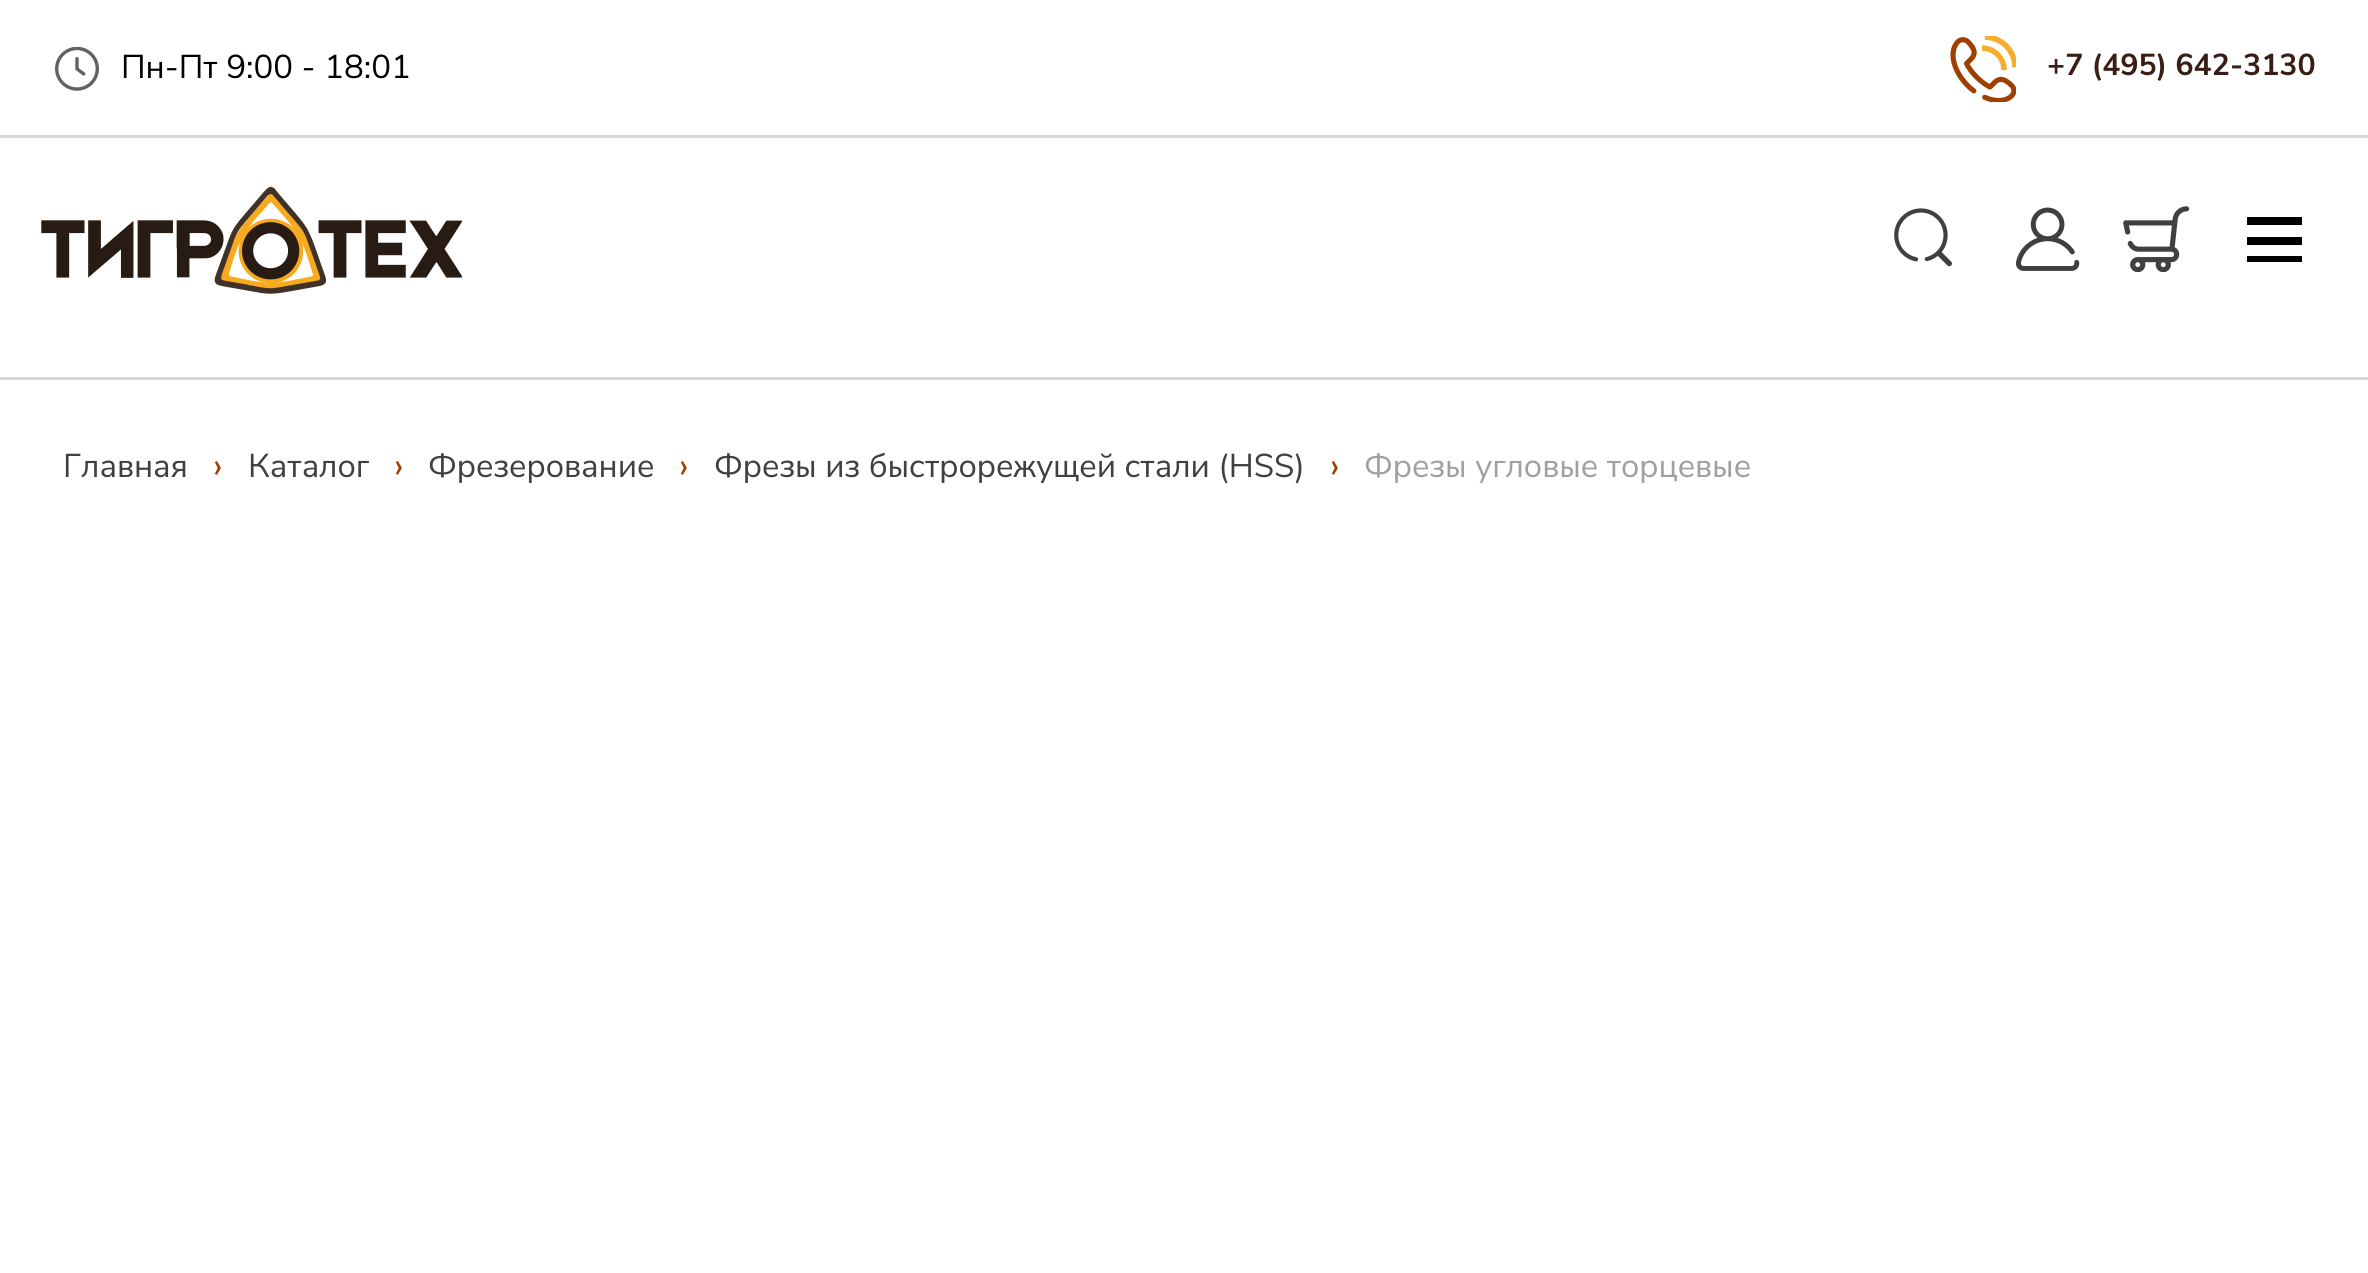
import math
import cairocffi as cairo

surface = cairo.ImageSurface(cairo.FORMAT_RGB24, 2368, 1273)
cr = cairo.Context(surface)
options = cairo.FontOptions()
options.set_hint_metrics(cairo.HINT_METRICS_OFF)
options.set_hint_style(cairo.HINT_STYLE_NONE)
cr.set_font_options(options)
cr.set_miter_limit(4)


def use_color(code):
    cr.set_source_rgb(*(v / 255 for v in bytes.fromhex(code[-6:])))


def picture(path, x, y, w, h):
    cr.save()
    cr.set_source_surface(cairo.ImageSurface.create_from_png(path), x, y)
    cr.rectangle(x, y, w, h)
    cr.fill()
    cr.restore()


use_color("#ffffff")
cr.paint()
use_color("#d6d7dd")
cr.rectangle(0, 135, 2368, 3)
cr.fill()
picture("img1.png", 55, 47, 44, 44)
cr.select_font_face("Nunito Sans")
cr.set_font_size(33)
use_color("#000000")
cr.move_to(121, 78)
cr.show_text("Пн-Пт 9:00 - 18:01")
picture("img2.png", 1950, 36, 66, 66)
cr.select_font_face("Nunito Sans", cairo.FONT_SLANT_NORMAL, cairo.FONT_WEIGHT_BOLD)
cr.set_font_size(30.25)
use_color("#3a1e16")
cr.move_to(2047, 75)
cr.show_text("+7 (495) 642-3130")
use_color("#d6d7dd")
cr.rectangle(0, 377, 2368, 3)
cr.fill()
picture("img3.png", 41, 187, 421, 107)
picture("img4.png", 1894, 208, 58, 59)
picture("img5.png", 2016, 207, 64, 64)
picture("img6.png", 2123, 206, 67, 66)
use_color("#000000")
cr.rectangle(2247, 217, 55, 8)
cr.fill()
cr.rectangle(2247, 237, 55, 8)
cr.fill()
cr.rectangle(2247, 256, 55, 6)
cr.fill()
cr.select_font_face("Nunito Sans")
cr.set_font_size(33)
use_color("#404040")
cr.move_to(63, 477)
cr.show_text("Главная")
cr.set_font_size(38)
use_color("#9f4000")
cr.move_to(213, 478)
cr.show_text("›")
cr.set_font_size(33)
use_color("#404040")
cr.move_to(248, 477)
cr.show_text("Каталог")
cr.set_font_size(38)
use_color("#9f4000")
cr.move_to(394, 478)
cr.show_text("›")
cr.set_font_size(33)
use_color("#404040")
cr.move_to(428, 477)
cr.show_text("Фрезерование")
cr.set_font_size(38)
use_color("#9f4000")
cr.move_to(679, 478)
cr.show_text("›")
cr.set_font_size(33)
use_color("#404040")
cr.move_to(714, 477)
cr.show_text("Фрезы из быстрорежущей стали (HSS)")
cr.set_font_size(38)
use_color("#9f4000")
cr.move_to(1330, 478)
cr.show_text("›")
cr.set_font_size(33)
use_color("#a0a0a0")
cr.move_to(1364, 477)
cr.show_text("Фрезы угловые торцевые")
surface.write_to_png("result.png")
